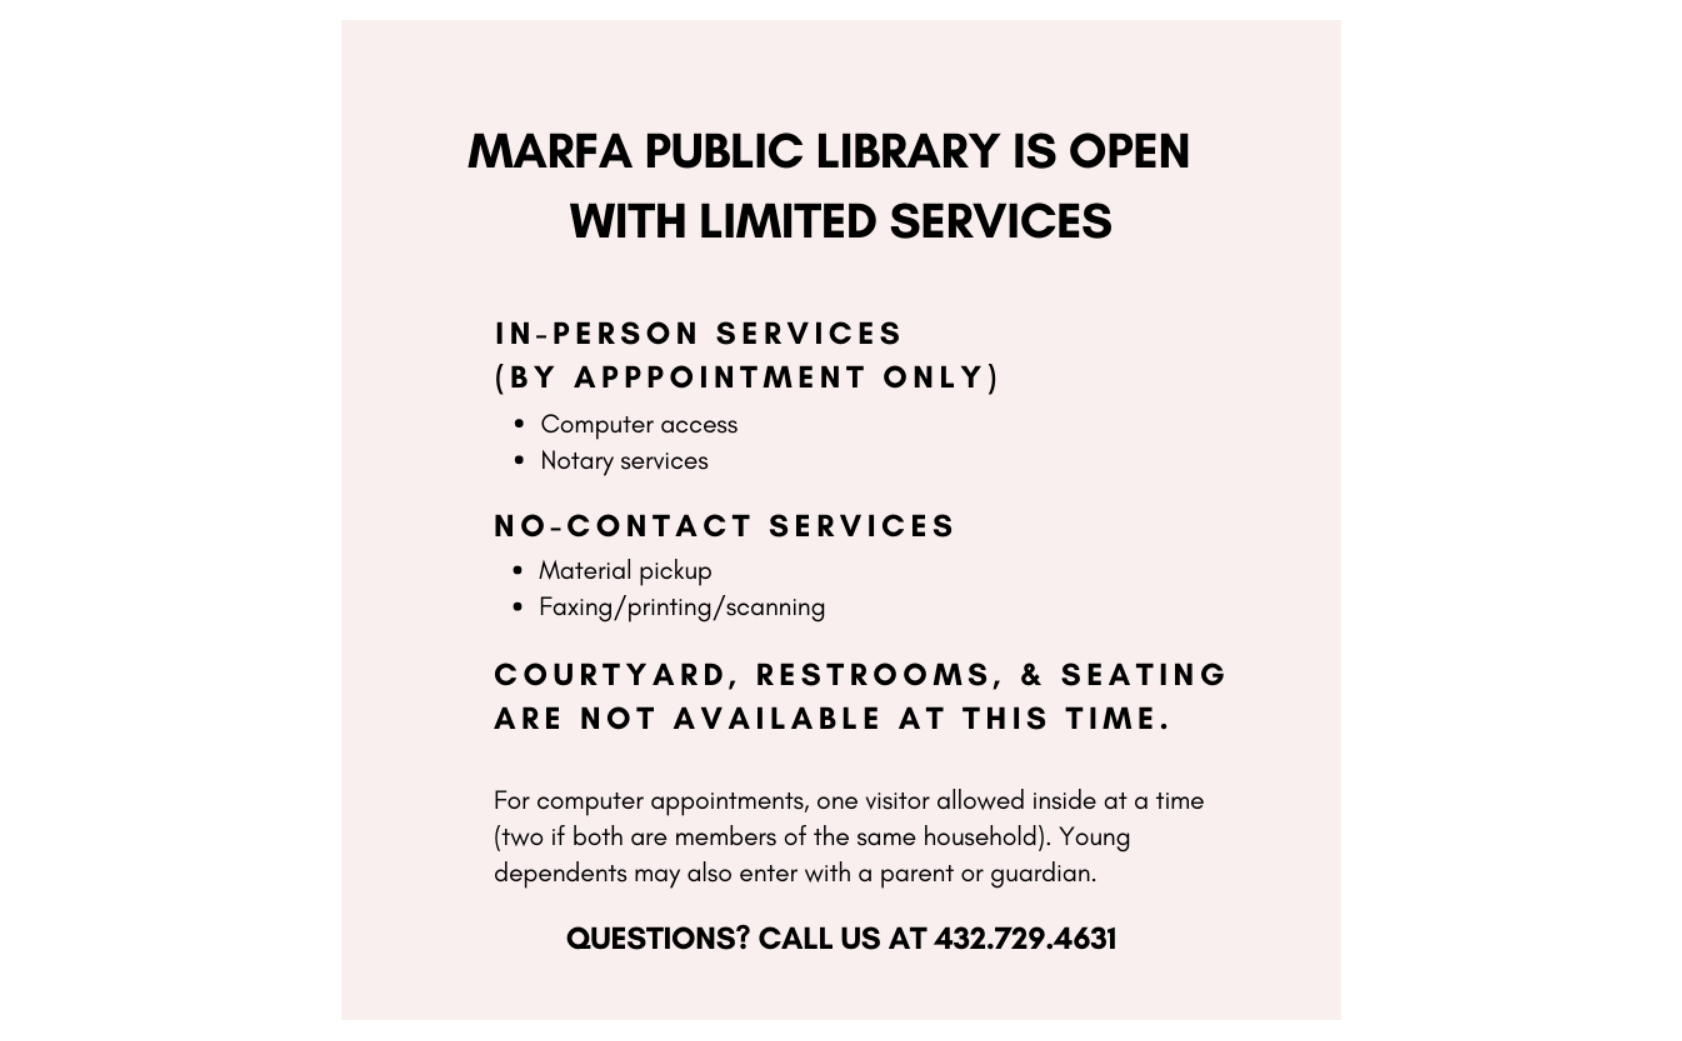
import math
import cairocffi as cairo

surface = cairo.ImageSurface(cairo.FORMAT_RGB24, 1682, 1041)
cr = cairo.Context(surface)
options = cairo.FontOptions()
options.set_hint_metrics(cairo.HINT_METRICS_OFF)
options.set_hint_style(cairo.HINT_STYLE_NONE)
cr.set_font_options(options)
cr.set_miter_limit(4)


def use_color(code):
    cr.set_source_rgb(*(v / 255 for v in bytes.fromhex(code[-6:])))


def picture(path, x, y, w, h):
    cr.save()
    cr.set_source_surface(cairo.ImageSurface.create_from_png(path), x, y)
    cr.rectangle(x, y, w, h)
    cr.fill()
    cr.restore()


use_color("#ffffff")
cr.paint()
picture("img1.png", 341, 20, 1001, 1000)
surface.write_to_png("result.png")
